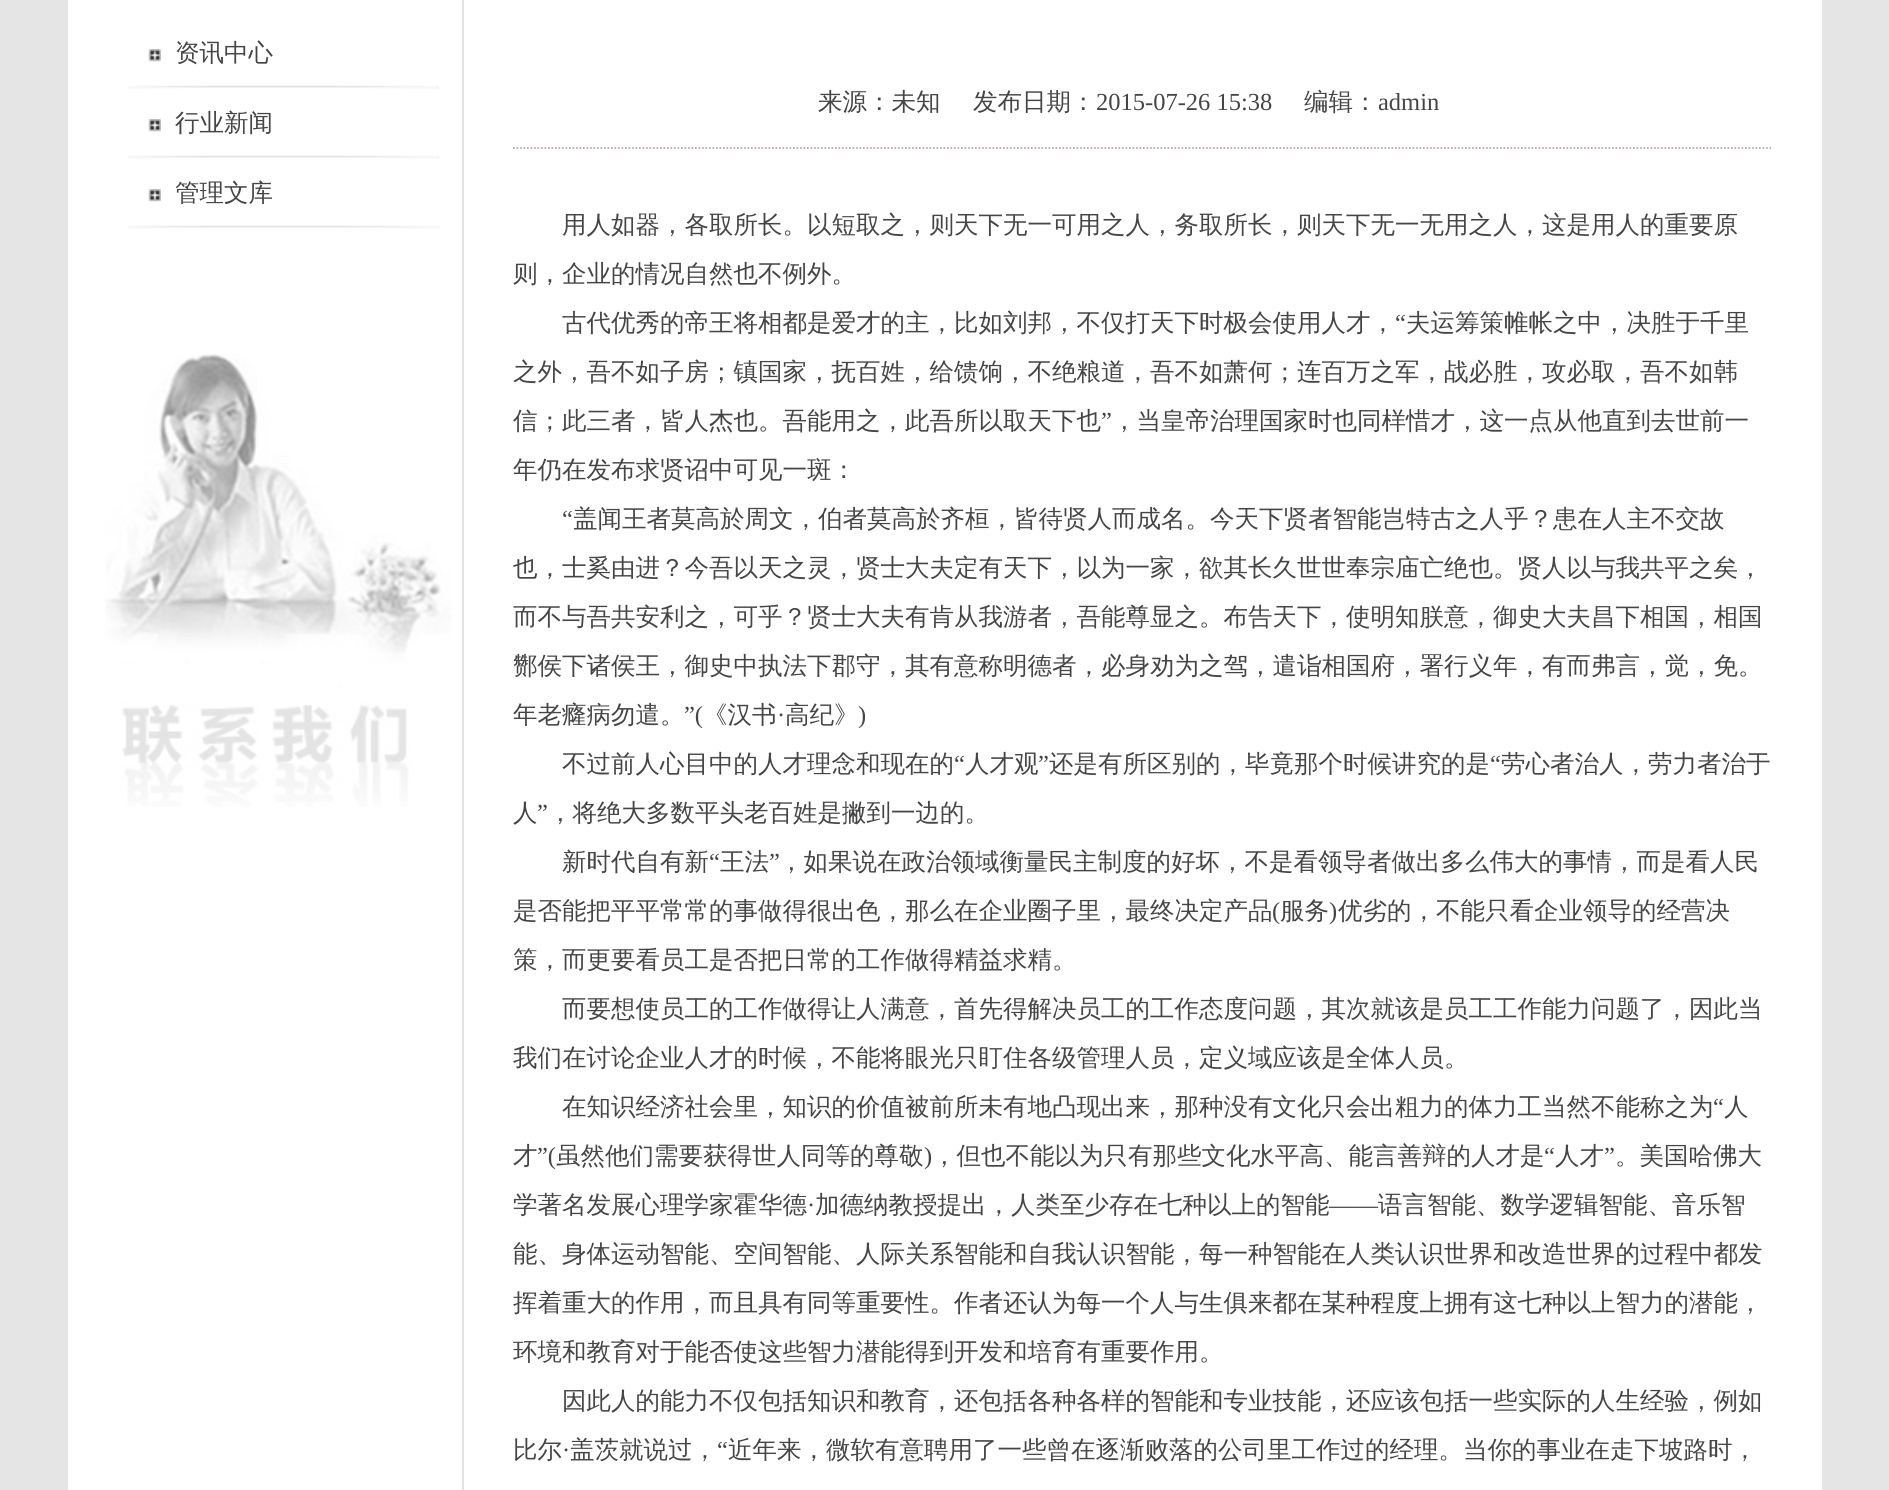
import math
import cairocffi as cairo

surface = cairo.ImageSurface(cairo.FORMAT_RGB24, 1889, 1490)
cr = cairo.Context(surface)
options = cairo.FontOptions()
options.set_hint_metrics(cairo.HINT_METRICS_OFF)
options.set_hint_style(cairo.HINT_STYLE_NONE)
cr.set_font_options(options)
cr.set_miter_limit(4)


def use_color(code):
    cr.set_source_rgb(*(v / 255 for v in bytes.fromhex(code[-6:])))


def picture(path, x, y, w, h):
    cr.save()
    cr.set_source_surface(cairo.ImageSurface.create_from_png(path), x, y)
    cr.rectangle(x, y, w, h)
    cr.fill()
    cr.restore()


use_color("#e5e5e5")
cr.paint()
use_color("#ffffff")
cr.rectangle(68, 0, 1754, 1490)
cr.fill()
picture("img1.png", 105, 354, 346, 453)
picture("img2.png", 128, 85, 311, 4)
picture("img3.png", 148, 49, 13, 13)
cr.select_font_face("WenQuanYi Zen Hei Medium")
cr.set_font_size(24.5)
use_color("#454545")
cr.move_to(175, 61)
cr.show_text("资讯中心")
picture("img2.png", 128, 155, 311, 4)
picture("img3.png", 148, 119, 13, 13)
cr.move_to(175, 131)
cr.show_text("行业新闻")
picture("img2.png", 128, 225, 311, 4)
picture("img3.png", 148, 189, 13, 13)
cr.move_to(175, 201)
cr.show_text("管理文库")
use_color("#e3e3e3")
cr.rectangle(462, 0, 2, 1490)
cr.fill()
cr.new_path()
cr.move_to(513, 148)
cr.line_to(1771, 148)
use_color("#b6aeaf")
cr.set_line_width(1.8)
cr.set_dash([1.75, 1.75])
cr.stroke()
use_color("#454545")
cr.move_to(818, 110)
cr.show_text("来源：未知")
cr.move_to(973, 110)
cr.show_text("发布日期：")
cr.select_font_face("Liberation Serif")
cr.move_to(1096, 110)
cr.show_text("2015-07-26 15:38")
cr.select_font_face("WenQuanYi Zen Hei Medium")
cr.move_to(1304, 110)
cr.show_text("编辑：")
cr.select_font_face("Liberation Serif")
cr.move_to(1378, 110)
cr.show_text("admin")
cr.select_font_face("WenQuanYi Zen Hei Medium")
cr.move_to(562, 233)
cr.show_text("用人如器，各取所长。以短取之，则天下无一可用之人，务取所长，则天下无一无用之人，这是用人的重要原")
cr.move_to(513, 282)
cr.show_text("则，企业的情况自然也不例外。")
cr.move_to(562, 331)
cr.show_text("古代优秀的帝王将相都是爱才的主，比如刘邦，不仅打天下时极会使用人才，")
cr.select_font_face("Liberation Serif")
cr.move_to(1395, 331)
cr.show_text("“")
cr.select_font_face("WenQuanYi Zen Hei Medium")
cr.move_to(1406, 331)
cr.show_text("夫运筹策帷帐之中，决胜于千里")
cr.move_to(513, 380)
cr.show_text("之外，吾不如子房；镇国家，抚百姓，给馈饷，不绝粮道，吾不如萧何；连百万之军，战必胜，攻必取，吾不如韩")
cr.move_to(513, 429)
cr.show_text("信；此三者，皆人杰也。吾能用之，此吾所以取天下也")
cr.select_font_face("Liberation Serif")
cr.move_to(1101, 429)
cr.show_text("”")
cr.select_font_face("WenQuanYi Zen Hei Medium")
cr.move_to(1112, 429)
cr.show_text("，当皇帝治理国家时也同样惜才，这一点从他直到去世前一")
cr.move_to(513, 478)
cr.show_text("年仍在发布求贤诏中可见一斑：")
cr.select_font_face("Liberation Serif")
cr.move_to(562, 527)
cr.show_text("“")
cr.select_font_face("WenQuanYi Zen Hei Medium")
cr.move_to(573, 527)
cr.show_text("盖闻王者莫高於周文，伯者莫高於齐桓，皆待贤人而成名。今天下贤者智能岂特古之人乎？患在人主不交故")
cr.move_to(513, 576)
cr.show_text("也，士奚由进？今吾以天之灵，贤士大夫定有天下，以为一家，欲其长久世世奉宗庙亡绝也。贤人以与我共平之矣，")
cr.move_to(513, 625)
cr.show_text("而不与吾共安利之，可乎？贤士大夫有肯从我游者，吾能尊显之。布告天下，使明知朕意，御史大夫昌下相国，相国")
cr.move_to(513, 674)
cr.show_text("酂侯下诸侯王，御史中执法下郡守，其有意称明德者，必身劝为之驾，遣诣相国府，署行义年，有而弗言，觉，免。")
cr.move_to(513, 723)
cr.show_text("年老癃病勿遣。")
cr.select_font_face("Liberation Serif")
cr.move_to(684, 723)
cr.show_text("”(")
cr.select_font_face("WenQuanYi Zen Hei Medium")
cr.move_to(703, 723)
cr.show_text("《汉书")
cr.select_font_face("Liberation Serif")
cr.move_to(777, 723)
cr.show_text("·")
cr.select_font_face("WenQuanYi Zen Hei Medium")
cr.move_to(785, 723)
cr.show_text("高纪》")
cr.select_font_face("Liberation Serif")
cr.move_to(858, 723)
cr.show_text(")")
cr.select_font_face("WenQuanYi Zen Hei Medium")
cr.move_to(562, 772)
cr.show_text("不过前人心目中的人才理念和现在的")
cr.select_font_face("Liberation Serif")
cr.move_to(954, 772)
cr.show_text("“")
cr.select_font_face("WenQuanYi Zen Hei Medium")
cr.move_to(965, 772)
cr.show_text("人才观")
cr.select_font_face("Liberation Serif")
cr.move_to(1038, 772)
cr.show_text("”")
cr.select_font_face("WenQuanYi Zen Hei Medium")
cr.move_to(1049, 772)
cr.show_text("还是有所区别的，毕竟那个时候讲究的是")
cr.select_font_face("Liberation Serif")
cr.move_to(1490, 772)
cr.show_text("“")
cr.select_font_face("WenQuanYi Zen Hei Medium")
cr.move_to(1501, 772)
cr.show_text("劳心者治人，劳力者治于")
cr.move_to(513, 821)
cr.show_text("人")
cr.select_font_face("Liberation Serif")
cr.move_to(537, 821)
cr.show_text("”")
cr.select_font_face("WenQuanYi Zen Hei Medium")
cr.move_to(548, 821)
cr.show_text("，将绝大多数平头老百姓是撇到一边的。")
cr.move_to(562, 870)
cr.show_text("新时代自有新")
cr.select_font_face("Liberation Serif")
cr.move_to(709, 870)
cr.show_text("“")
cr.select_font_face("WenQuanYi Zen Hei Medium")
cr.move_to(720, 870)
cr.show_text("王法")
cr.select_font_face("Liberation Serif")
cr.move_to(769, 870)
cr.show_text("”")
cr.select_font_face("WenQuanYi Zen Hei Medium")
cr.move_to(779, 870)
cr.show_text("，如果说在政治领域衡量民主制度的好坏，不是看领导者做出多么伟大的事情，而是看人民")
cr.move_to(513, 919)
cr.show_text("是否能把平平常常的事做得很出色，那么在企业圈子里，最终决定产品")
cr.select_font_face("Liberation Serif")
cr.move_to(1272, 919)
cr.show_text("(")
cr.select_font_face("WenQuanYi Zen Hei Medium")
cr.move_to(1280, 919)
cr.show_text("服务")
cr.select_font_face("Liberation Serif")
cr.move_to(1329, 919)
cr.show_text(")")
cr.select_font_face("WenQuanYi Zen Hei Medium")
cr.move_to(1338, 919)
cr.show_text("优劣的，不能只看企业领导的经营决")
cr.move_to(513, 968)
cr.show_text("策，而更要看员工是否把日常的工作做得精益求精。")
cr.move_to(562, 1017)
cr.show_text("而要想使员工的工作做得让人满意，首先得解决员工的工作态度问题，其次就该是员工工作能力问题了，因此当")
cr.move_to(513, 1066)
cr.show_text("我们在讨论企业人才的时候，不能将眼光只盯住各级管理人员，定义域应该是全体人员。")
cr.move_to(562, 1115)
cr.show_text("在知识经济社会里，知识的价值被前所未有地凸现出来，那种没有文化只会出粗力的体力工当然不能称之为")
cr.select_font_face("Liberation Serif")
cr.move_to(1713, 1115)
cr.show_text("“")
cr.select_font_face("WenQuanYi Zen Hei Medium")
cr.move_to(1724, 1115)
cr.show_text("人")
cr.move_to(513, 1164)
cr.show_text("才")
cr.select_font_face("Liberation Serif")
cr.move_to(537, 1164)
cr.show_text("”(")
cr.select_font_face("WenQuanYi Zen Hei Medium")
cr.move_to(556, 1164)
cr.show_text("虽然他们需要获得世人同等的尊敬")
cr.select_font_face("Liberation Serif")
cr.move_to(924, 1164)
cr.show_text(")")
cr.select_font_face("WenQuanYi Zen Hei Medium")
cr.move_to(932, 1164)
cr.show_text("，但也不能以为只有那些文化水平高、能言善辩的人才是")
cr.select_font_face("Liberation Serif")
cr.move_to(1544, 1164)
cr.show_text("“")
cr.select_font_face("WenQuanYi Zen Hei Medium")
cr.move_to(1555, 1164)
cr.show_text("人才")
cr.select_font_face("Liberation Serif")
cr.move_to(1604, 1164)
cr.show_text("”")
cr.select_font_face("WenQuanYi Zen Hei Medium")
cr.move_to(1615, 1164)
cr.show_text("。美国哈佛大")
cr.move_to(513, 1213)
cr.show_text("学著名发展心理学家霍华德")
cr.select_font_face("Liberation Serif")
cr.move_to(807, 1213)
cr.show_text("·")
cr.select_font_face("WenQuanYi Zen Hei Medium")
cr.move_to(815, 1213)
cr.show_text("加德纳教授提出，人类至少存在七种以上的智能")
cr.select_font_face("Liberation Serif")
cr.move_to(1329, 1213)
cr.show_text("——")
cr.select_font_face("WenQuanYi Zen Hei Medium")
cr.move_to(1378, 1213)
cr.show_text("语言智能、数学逻辑智能、音乐智")
cr.move_to(513, 1262)
cr.show_text("能、身体运动智能、空间智能、人际关系智能和自我认识智能，每一种智能在人类认识世界和改造世界的过程中都发")
cr.move_to(513, 1311)
cr.show_text("挥着重大的作用，而且具有同等重要性。作者还认为每一个人与生俱来都在某种程度上拥有这七种以上智力的潜能，")
cr.move_to(513, 1360)
cr.show_text("环境和教育对于能否使这些智力潜能得到开发和培育有重要作用。")
cr.move_to(562, 1409)
cr.show_text("因此人的能力不仅包括知识和教育，还包括各种各样的智能和专业技能，还应该包括一些实际的人生经验，例如")
cr.move_to(513, 1458)
cr.show_text("比尔")
cr.move_to(570, 1458)
cr.show_text("盖茨就说过，")
cr.select_font_face("Liberation Serif")
cr.move_to(717, 1458)
cr.show_text("“")
cr.select_font_face("WenQuanYi Zen Hei Medium")
cr.move_to(728, 1458)
cr.show_text("近年来，微软有意聘用了一些曾在逐渐败落的公司里工作过的经理。当你的事业在走下坡路时，")
cr.select_font_face("Liberation Serif")
cr.move_to(562, 1458)
cr.show_text("·")
surface.write_to_png("result.png")
